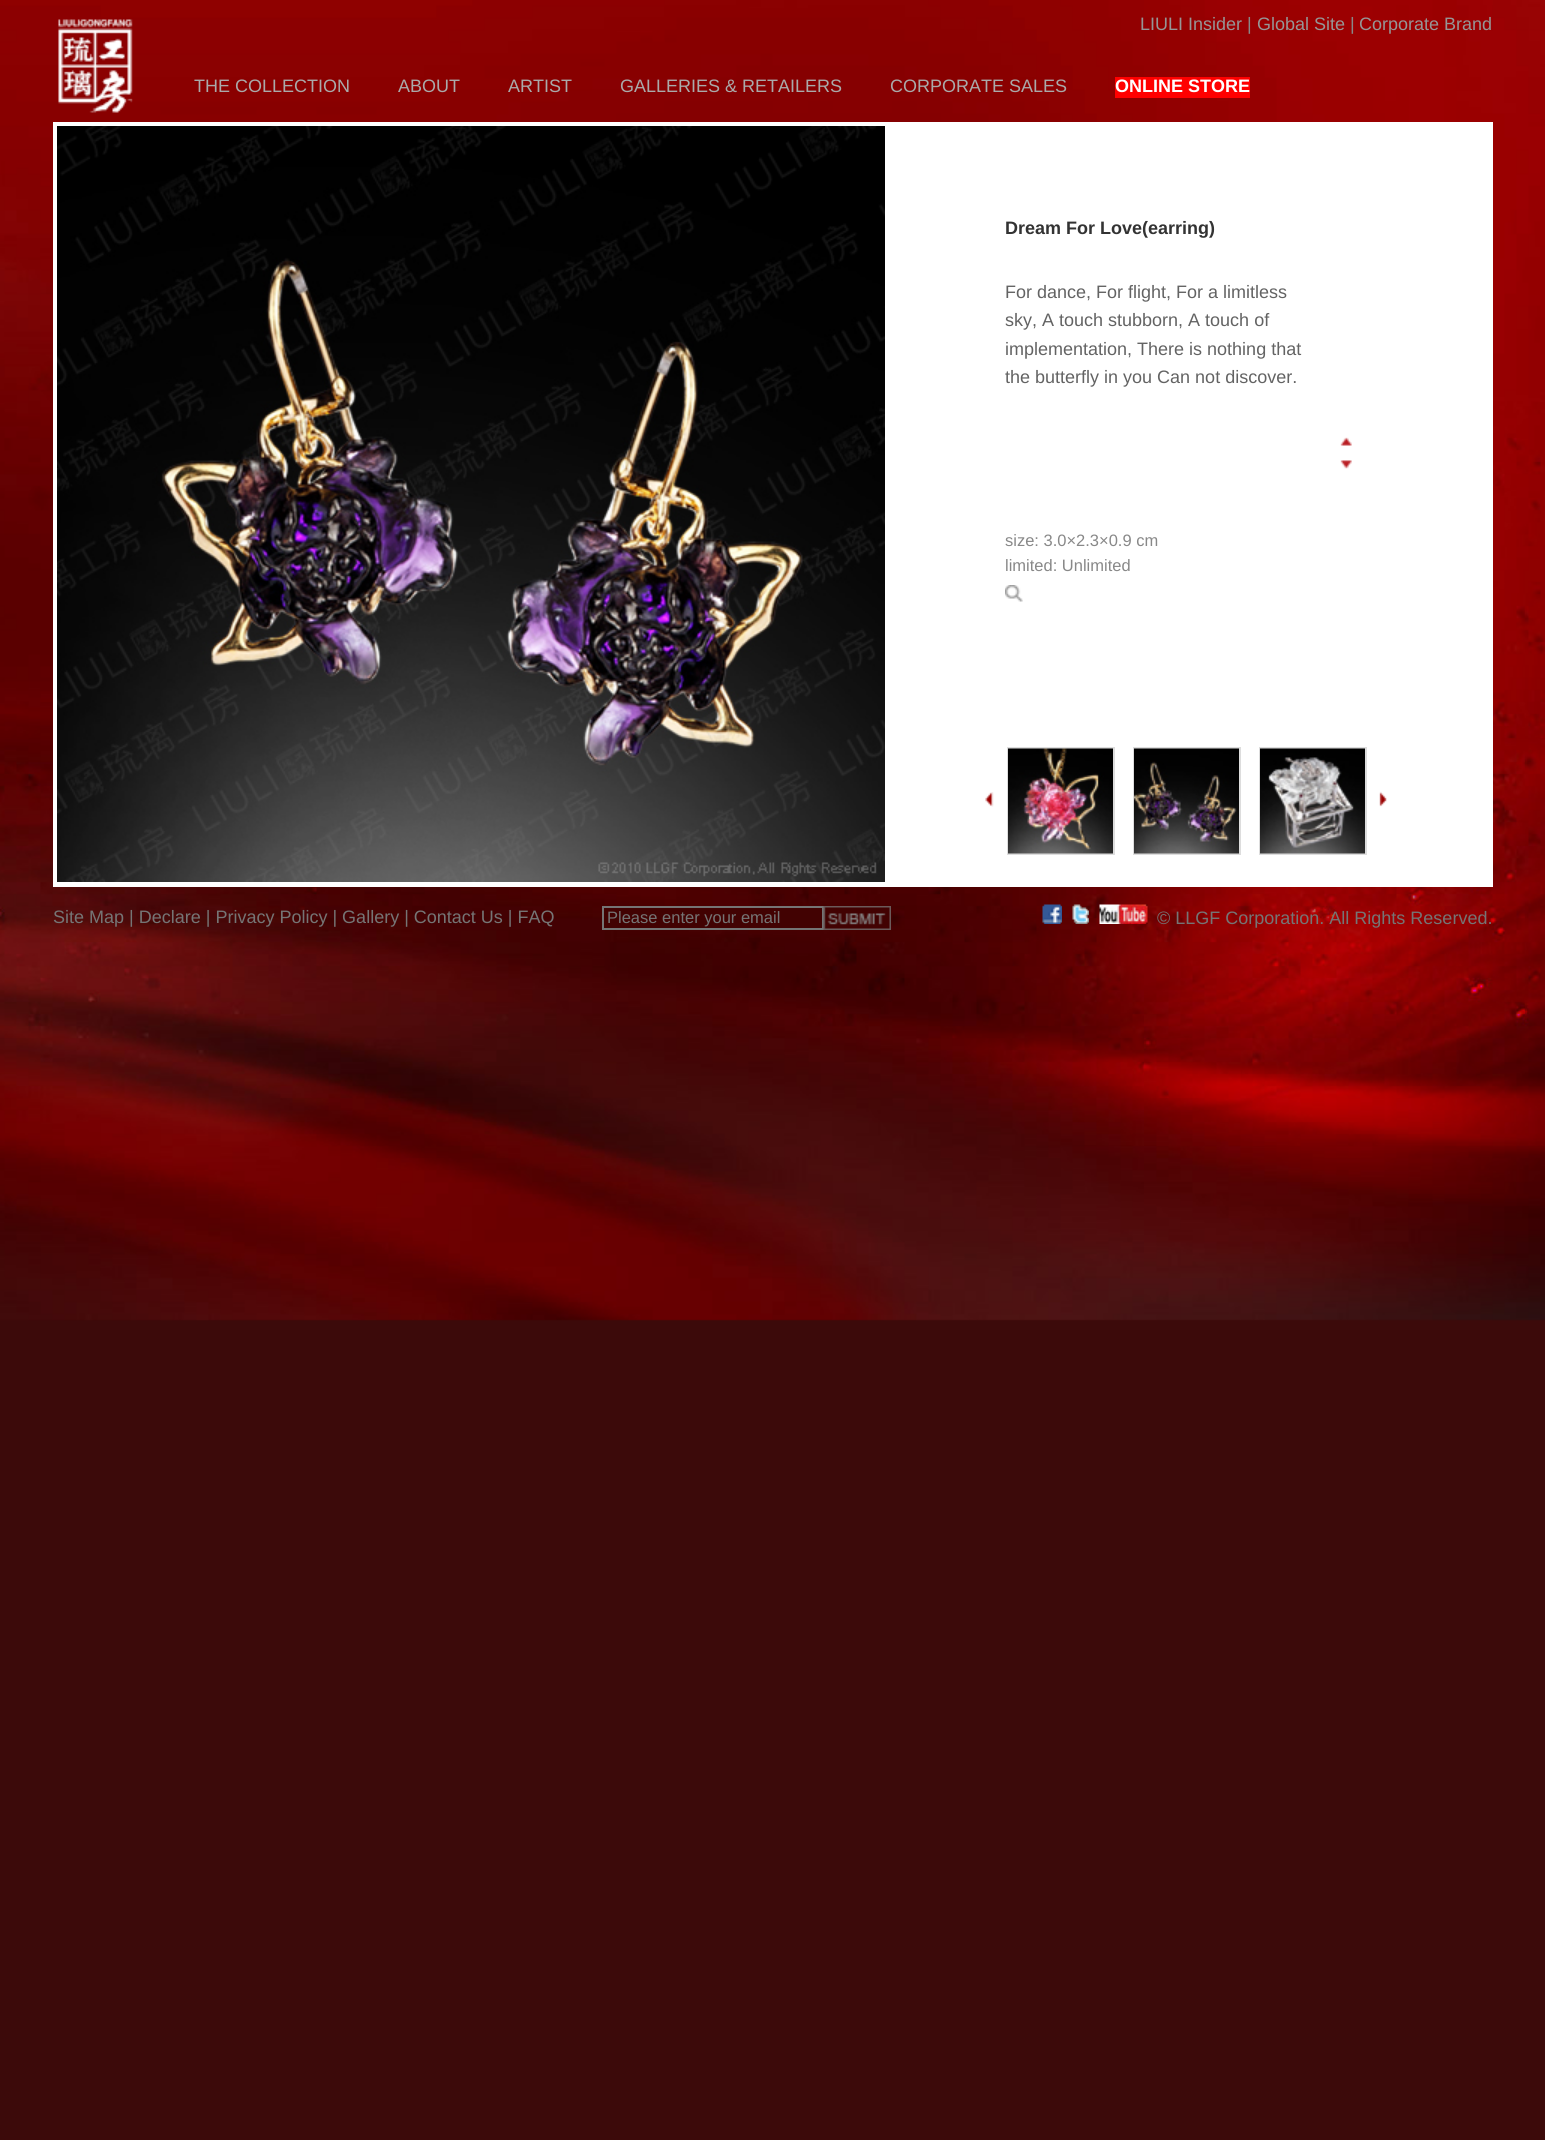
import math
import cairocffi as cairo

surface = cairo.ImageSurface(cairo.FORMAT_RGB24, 1545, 2140)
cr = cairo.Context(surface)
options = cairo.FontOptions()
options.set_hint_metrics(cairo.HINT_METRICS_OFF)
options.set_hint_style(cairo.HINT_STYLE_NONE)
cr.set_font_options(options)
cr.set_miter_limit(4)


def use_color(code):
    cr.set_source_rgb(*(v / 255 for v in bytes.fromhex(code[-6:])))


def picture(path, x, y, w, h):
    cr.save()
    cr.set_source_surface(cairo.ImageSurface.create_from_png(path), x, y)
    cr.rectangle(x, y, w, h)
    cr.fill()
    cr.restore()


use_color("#3c0a0a")
cr.paint()
picture("img1.png", 0, 0, 1545, 1321)
picture("img2.png", 58, 19, 75, 94)
cr.select_font_face("Liberation Sans")
cr.set_font_size(18)
use_color("#969696")
cr.move_to(1140, 30)
cr.show_text("LIULI Insider")
use_color("#888888")
cr.move_to(1247, 30)
cr.show_text("|")
use_color("#969696")
cr.move_to(1257, 30)
cr.show_text("Global Site")
use_color("#888888")
cr.move_to(1350, 30)
cr.show_text("|")
use_color("#969696")
cr.move_to(1359, 30)
cr.show_text("Corporate Brand")
use_color("#aaaaaa")
cr.move_to(194, 92)
cr.show_text("THE COLLECTION")
cr.move_to(398, 92)
cr.show_text("ABOUT")
cr.move_to(508, 92)
cr.show_text("ARTIST")
cr.move_to(620, 92)
cr.show_text("GALLERIES & RETAILERS")
cr.move_to(890, 92)
cr.show_text("CORPORATE SALES")
use_color("#ff0000")
cr.rectangle(1115, 77, 135, 21)
cr.fill()
cr.select_font_face("Liberation Sans", cairo.FONT_SLANT_NORMAL, cairo.FONT_WEIGHT_BOLD)
use_color("#ffffff")
cr.move_to(1115, 92)
cr.show_text("ONLINE STORE")
cr.rectangle(53, 122, 1440, 765)
cr.fill()
picture("img3.png", 57, 126, 828, 756)
use_color("#333333")
cr.move_to(1005, 234)
cr.show_text("Dream For Love(earring)")
cr.select_font_face("Liberation Sans")
use_color("#636363")
cr.move_to(1005, 298)
cr.show_text("For dance, For flight, For a limitless")
cr.move_to(1005, 326)
cr.show_text("sky, A touch stubborn, A touch of")
cr.move_to(1005, 355)
cr.show_text("implementation, There is nothing that")
cr.move_to(1005, 383)
cr.show_text("the butterfly in you Can not discover.")
picture("img4.png", 1340, 437, 12, 9)
picture("img5.png", 1340, 460, 12, 9)
cr.set_font_size(16.5)
use_color("#888888")
cr.move_to(1005, 546)
cr.show_text("size: 3.0×2.3×0.9 cm")
cr.move_to(1005, 571)
cr.show_text("limited: Unlimited")
picture("img6.png", 1005, 585, 18, 17)
picture("img7.png", 985, 792, 9, 15)
cr.rectangle(1008, 748, 106, 106)
use_color("#dddddd")
cr.stroke()
picture("img8.png", 1008, 748, 105, 106)
cr.rectangle(1134, 748, 106, 106)
cr.stroke()
picture("img9.png", 1134, 748, 105, 106)
cr.rectangle(1260, 748, 106, 106)
cr.stroke()
picture("img10.png", 1260, 748, 105, 106)
picture("img11.png", 1379, 791, 8, 16)
cr.set_font_size(18)
use_color("#757575")
cr.move_to(53, 923)
cr.show_text("Site Map | Declare | Privacy Policy | Gallery | Contact Us | FAQ")
use_color("#420202")
cr.rectangle(603, 907, 220, 22)
cr.fill_preserve()
use_color("#757575")
cr.stroke()
cr.set_font_size(16.5)
cr.move_to(607, 923)
cr.show_text("Please enter your email")
picture("img12.png", 823, 906, 68, 24)
picture("img13.png", 1042, 904, 20, 20)
picture("img14.png", 1072, 904, 17, 20)
picture("img15.png", 1099, 904, 49, 20)
cr.set_font_size(18)
cr.move_to(1157, 924)
cr.show_text("© LLGF Corporation. All Rights Reserved.")
surface.write_to_png("result.png")
